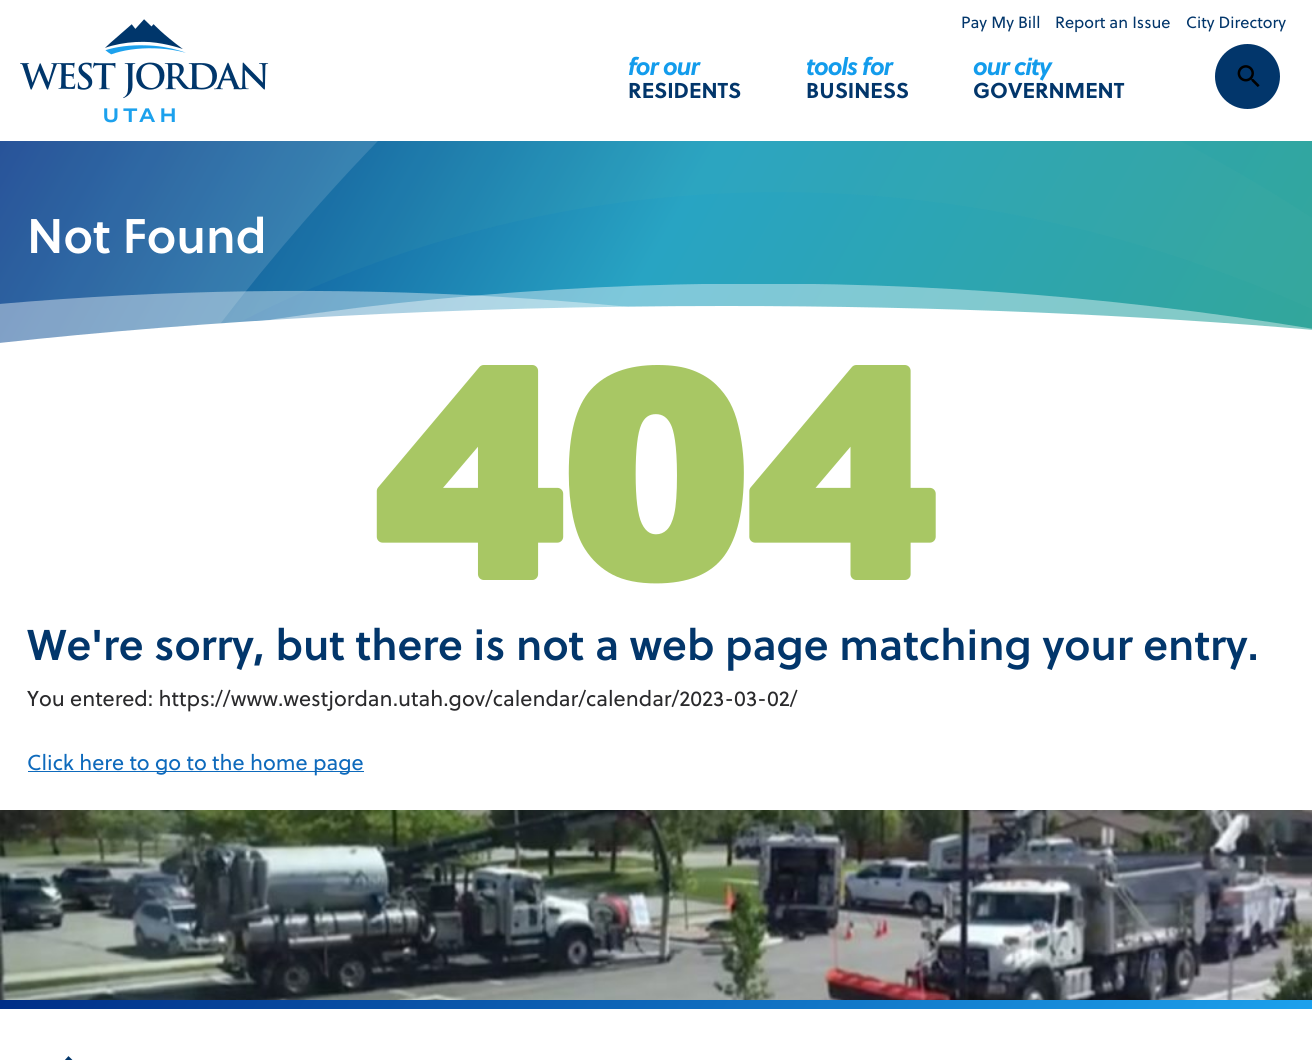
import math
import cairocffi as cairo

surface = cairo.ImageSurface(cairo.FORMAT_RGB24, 1312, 1060)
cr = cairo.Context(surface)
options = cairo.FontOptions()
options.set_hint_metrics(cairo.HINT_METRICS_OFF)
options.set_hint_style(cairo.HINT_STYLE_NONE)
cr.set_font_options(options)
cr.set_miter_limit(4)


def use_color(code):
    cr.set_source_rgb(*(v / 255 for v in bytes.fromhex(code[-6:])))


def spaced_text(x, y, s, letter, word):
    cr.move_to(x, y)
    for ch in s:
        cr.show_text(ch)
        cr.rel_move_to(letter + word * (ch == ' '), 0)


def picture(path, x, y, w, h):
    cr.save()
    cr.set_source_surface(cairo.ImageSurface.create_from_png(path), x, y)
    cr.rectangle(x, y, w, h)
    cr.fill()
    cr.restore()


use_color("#ffffff")
cr.paint()
picture("img1.png", 20, 19, 249, 104)
cr.select_font_face("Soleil")
cr.set_font_size(16.25)
use_color("#02366b")
cr.move_to(961, 28)
cr.show_text("Pay My Bill")
cr.move_to(1055, 28)
cr.show_text("Report an Issue")
cr.move_to(1186, 28)
cr.show_text("City Directory")
cr.select_font_face("Soleil", cairo.FONT_SLANT_ITALIC, cairo.FONT_WEIGHT_BOLD)
cr.set_font_size(24)
use_color("#139cec")
spaced_text(628, 75, "for our", -1, 0)
cr.select_font_face("Soleil", cairo.FONT_SLANT_NORMAL, cairo.FONT_WEIGHT_BOLD)
cr.set_font_size(21.5)
use_color("#02366b")
cr.move_to(628, 98)
cr.show_text("RESIDENTS")
cr.select_font_face("Soleil", cairo.FONT_SLANT_ITALIC, cairo.FONT_WEIGHT_BOLD)
cr.set_font_size(24)
use_color("#139cec")
spaced_text(806, 75, "tools for", -1, 0)
cr.select_font_face("Soleil", cairo.FONT_SLANT_NORMAL, cairo.FONT_WEIGHT_BOLD)
cr.set_font_size(21.5)
use_color("#02366b")
cr.move_to(806, 98)
cr.show_text("BUSINESS")
cr.select_font_face("Soleil", cairo.FONT_SLANT_ITALIC, cairo.FONT_WEIGHT_BOLD)
cr.set_font_size(24)
use_color("#139cec")
spaced_text(973, 75, "our city", -1, 0)
cr.select_font_face("Soleil", cairo.FONT_SLANT_NORMAL, cairo.FONT_WEIGHT_BOLD)
cr.set_font_size(21.5)
use_color("#02366b")
cr.move_to(973, 98)
cr.show_text("GOVERNMENT")
cr.new_path()
cr.arc(1247.5, 76.5, 32.5, 0, 2 * math.pi)
cr.fill()
picture("img2.png", 1237, 65, 23, 22)
gradient = cairo.LinearGradient(116, -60, 1196, 563)
gradient.add_color_stop_rgba(0, 0, 0.18, 0.529, 1)
gradient.add_color_stop_rgba(0.5, 0.157, 0.643, 0.765, 1)
gradient.add_color_stop_rgba(1, 0.2, 0.651, 0.604, 1)
cr.set_source(gradient)
cr.rectangle(0, 141, 1312, 202)
cr.fill()
cr.save()
cr.rectangle(0, 141, 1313, 220)
cr.clip()
cr.set_source_rgba(0.388, 0.722, 0.659, 0.09)
cr.new_path()
cr.move_to(0, 361)
cr.line_to(0, 133)
cr.curve_to(424, -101, 916, -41, 1312, 218)
cr.line_to(1312, 309)
cr.curve_to(941, 143, 524, 148, 170, 361)
cr.close_path()
cr.fill()
cr.set_source_rgba(1, 1, 1, 0.13)
cr.new_path()
cr.move_to(0, 361)
cr.line_to(0, -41)
cr.line_to(582, -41)
cr.curve_to(441, 66, 310, 202, 192, 361)
cr.close_path()
cr.fill()
cr.restore()
cr.select_font_face("Soleil SemiBold")
cr.set_font_size(48.5)
use_color("#ffffff")
cr.move_to(27, 253)
cr.show_text("Not Found")
cr.save()
cr.rectangle(0, 284, 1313, 79)
cr.clip()
cr.set_source_rgba(1, 1, 1, 0.4)
cr.new_path()
cr.move_to(42, 363)
cr.curve_to(457, 268, 894, 260, 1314, 329)
cr.line_to(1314, 363)
cr.close_path()
cr.fill()
cr.restore()
cr.set_source_rgba(1, 1, 1, 0.4)
cr.new_path()
cr.move_to(-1, 363)
cr.line_to(-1, 304)
cr.curve_to(331, 275, 667, 294, 993, 363)
cr.close_path()
cr.fill()
use_color("#ffffff")
cr.new_path()
cr.move_to(-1, 363)
cr.line_to(-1, 343)
cr.curve_to(200, 321, 452, 306, 725, 306)
cr.curve_to(939, 306, 1140, 315, 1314, 330)
cr.line_to(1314, 363)
cr.close_path()
cr.fill()
picture("img3.png", 376, 365, 560, 219)
cr.set_font_size(43)
use_color("#02366b")
cr.move_to(27, 660)
cr.show_text("We're sorry, but there is not a web page matching your entry.")
cr.select_font_face("Soleil")
cr.set_font_size(21.5)
use_color("#2a2a2c")
cr.move_to(27, 706)
cr.show_text("You entered: https://www.westjordan.utah.gov/calendar/calendar/2023-03-02/")
use_color("#0e6abc")
cr.rectangle(28, 771, 336, 1)
cr.fill()
cr.move_to(27, 770)
cr.show_text("Click here to go to the home page")
picture("img4.png", 0, 810, 1312, 190)
gradient = cairo.LinearGradient(162, 719, 1150, 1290)
gradient.add_color_stop_rgba(0, 0, 0.18, 0.529, 1)
gradient.add_color_stop_rgba(1, 0.11, 0.631, 0.929, 1)
cr.set_source(gradient)
cr.rectangle(0, 1000, 1312, 9)
cr.fill()
picture("img5.png", 65, 1056, 8, 4)
surface.write_to_png("result.png")
